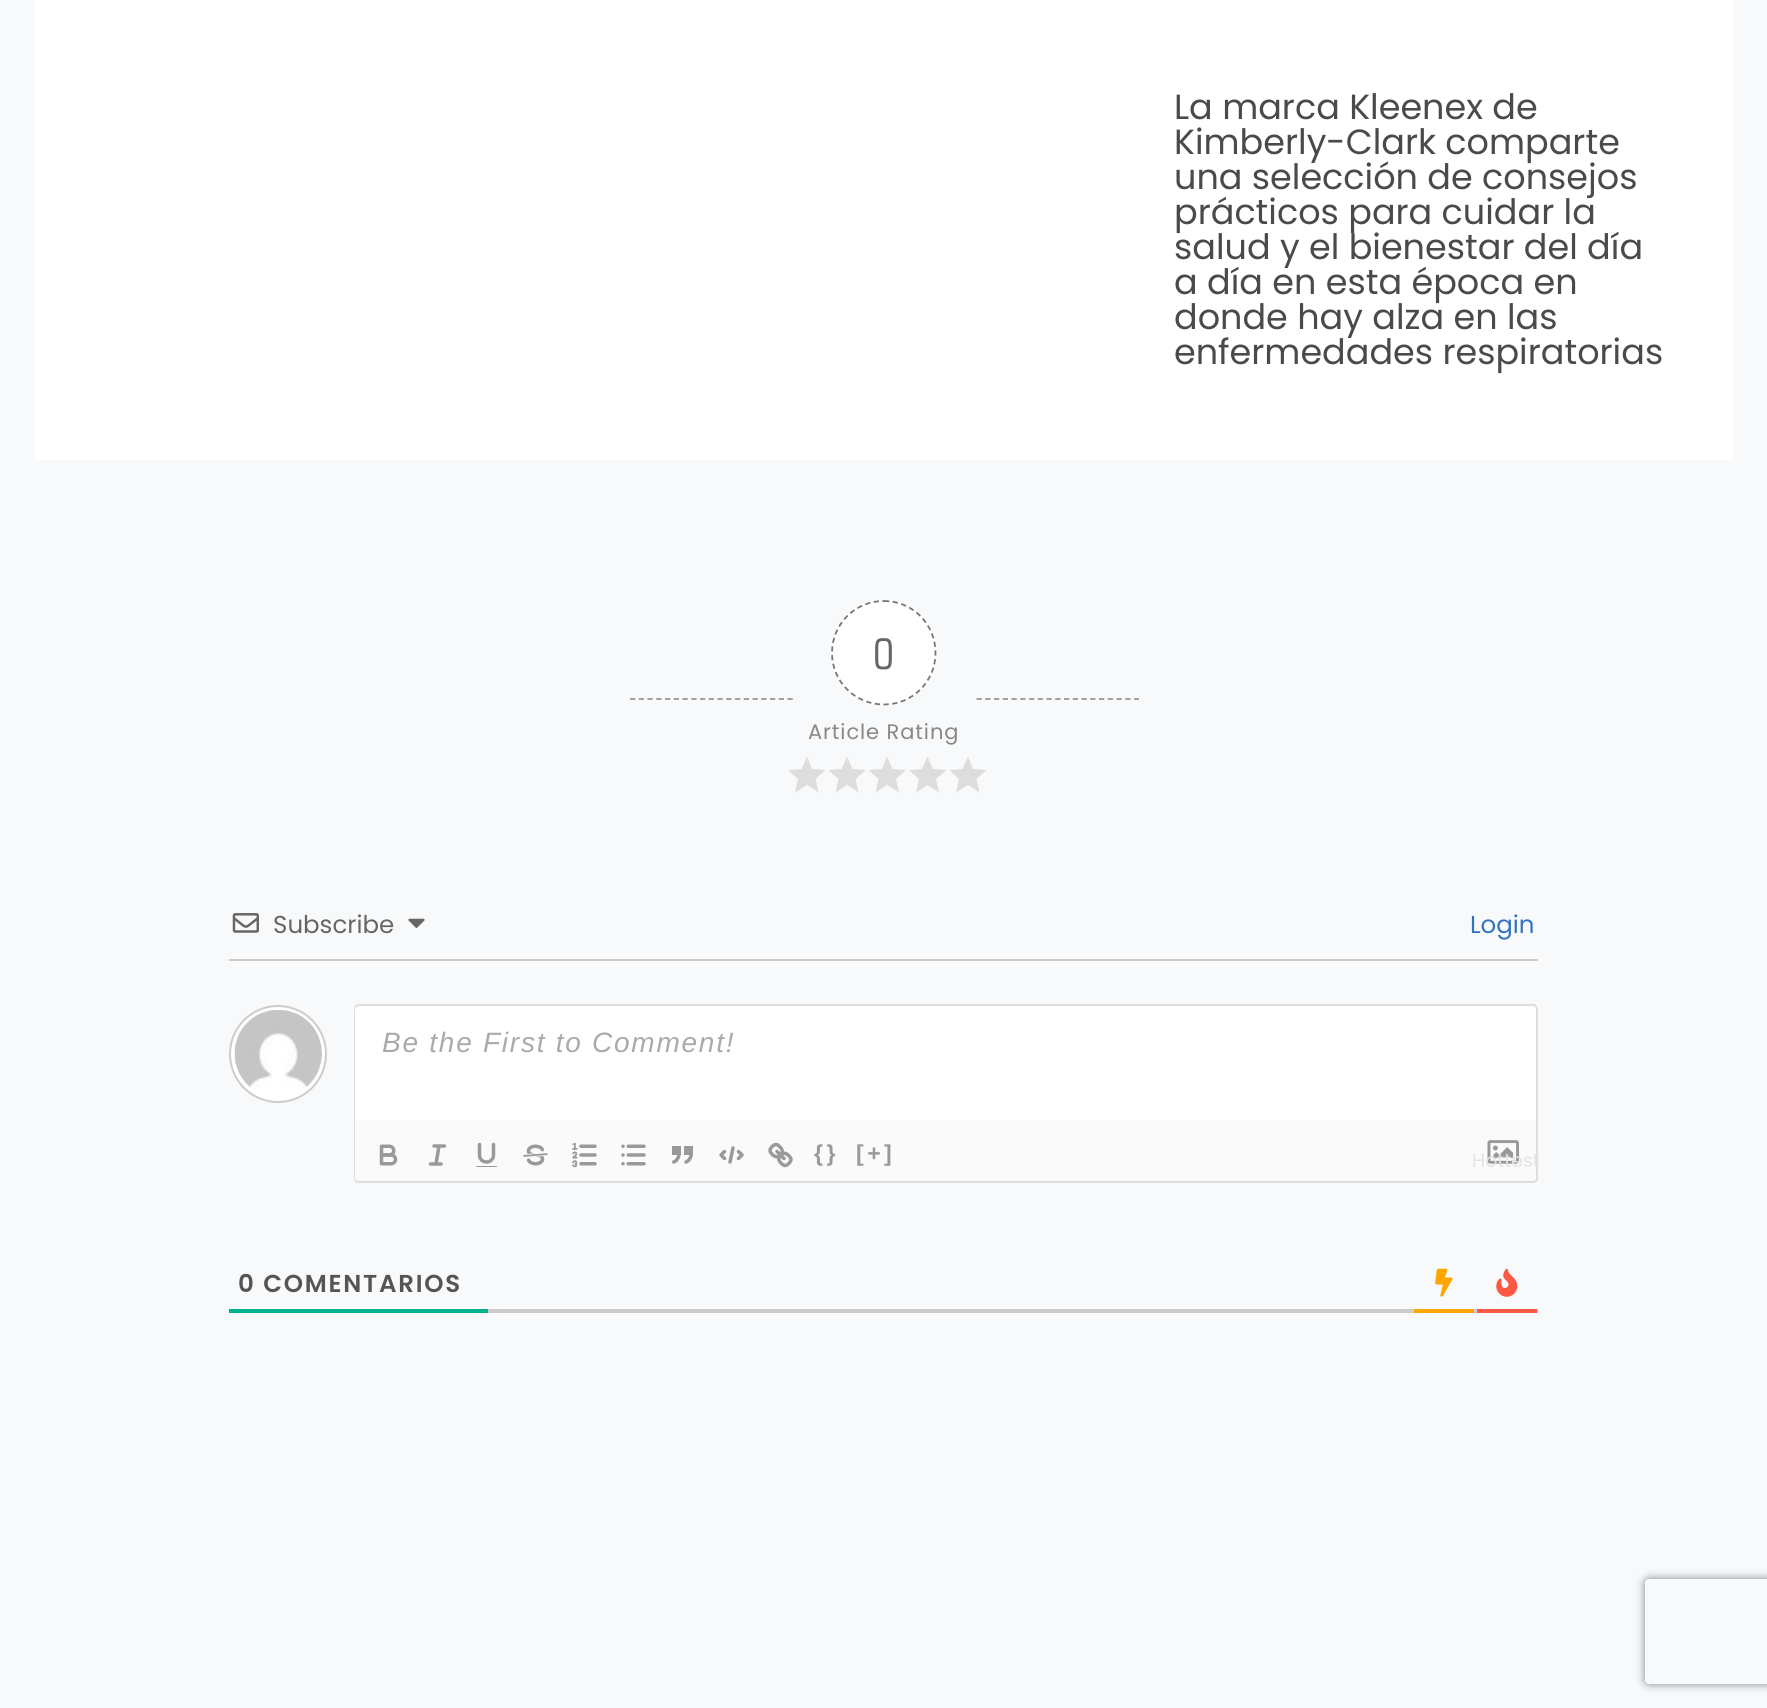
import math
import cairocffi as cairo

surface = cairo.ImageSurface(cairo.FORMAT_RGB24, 1767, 1708)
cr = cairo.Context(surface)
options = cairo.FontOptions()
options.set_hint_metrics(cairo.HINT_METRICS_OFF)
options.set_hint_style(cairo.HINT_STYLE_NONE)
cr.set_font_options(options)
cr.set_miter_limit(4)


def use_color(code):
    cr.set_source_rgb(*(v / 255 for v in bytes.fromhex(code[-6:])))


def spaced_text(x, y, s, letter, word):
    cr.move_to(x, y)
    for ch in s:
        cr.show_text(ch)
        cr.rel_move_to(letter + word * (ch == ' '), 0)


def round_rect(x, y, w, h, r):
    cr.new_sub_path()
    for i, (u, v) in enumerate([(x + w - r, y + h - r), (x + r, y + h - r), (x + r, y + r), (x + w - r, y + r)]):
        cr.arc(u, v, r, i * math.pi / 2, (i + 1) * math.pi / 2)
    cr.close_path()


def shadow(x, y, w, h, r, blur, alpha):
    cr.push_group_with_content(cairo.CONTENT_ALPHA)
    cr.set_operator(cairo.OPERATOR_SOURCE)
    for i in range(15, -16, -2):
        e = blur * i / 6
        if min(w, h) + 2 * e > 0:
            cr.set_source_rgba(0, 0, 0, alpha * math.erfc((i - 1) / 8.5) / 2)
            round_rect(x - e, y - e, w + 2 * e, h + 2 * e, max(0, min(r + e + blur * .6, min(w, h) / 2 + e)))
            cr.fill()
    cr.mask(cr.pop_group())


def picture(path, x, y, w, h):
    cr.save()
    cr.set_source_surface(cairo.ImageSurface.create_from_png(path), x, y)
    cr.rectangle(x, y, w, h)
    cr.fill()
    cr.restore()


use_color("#f7f9fb")
cr.paint()
use_color("#ffffff")
cr.rectangle(35, 0, 1698, 460)
cr.fill()
cr.select_font_face("Poppins")
cr.set_font_size(35)
use_color("#4a4a4a")
cr.move_to(1174, 119)
cr.show_text("La marca Kleenex de")
cr.move_to(1174, 154)
cr.show_text("Kimberly-Clark comparte")
cr.move_to(1174, 189)
cr.show_text("una selección de consejos")
cr.move_to(1174, 224)
cr.show_text("prácticos para cuidar la")
cr.move_to(1174, 259)
cr.show_text("salud y el bienestar del día")
cr.move_to(1174, 294)
cr.show_text("a día en esta época en")
cr.move_to(1174, 329)
cr.show_text("donde hay alza en las")
cr.move_to(1174, 364)
cr.show_text("enfermedades respiratorias")
cr.new_path()
cr.move_to(630, 699)
cr.line_to(793, 699)
use_color("#999999")
cr.set_line_width(1.8)
cr.set_dash([5.25, 3.5])
cr.stroke()
use_color("#ffffff")
cr.arc(883.5, 652.5, 52.5, 0, 2 * math.pi)
cr.fill()
cr.new_path()
cr.move_to(884, 601)
cr.curve_to(912.5, 601, 935.5, 624, 935.5, 653)
cr.curve_to(935.5, 681.5, 912.5, 704.5, 884, 704.5)
cr.curve_to(855, 704.5, 832, 681.5, 832, 653)
cr.curve_to(832, 624, 855, 601, 884, 601)
cr.close_path()
use_color("#777777")
cr.stroke()
cr.select_font_face("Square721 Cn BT")
cr.set_font_size(42)
use_color("#666666")
cr.move_to(873, 669)
cr.show_text("0")
cr.select_font_face("Poppins")
cr.set_font_size(21)
use_color("#888888")
spaced_text(808, 739, "Article Rating", 0.9, 0)
use_color("#dddddd")
cr.new_path()
cr.move_to(807, 785)
cr.line_to(818.5, 792.5)
cr.line_to(815.5, 779)
cr.line_to(825.5, 770)
cr.line_to(812, 769)
cr.line_to(807, 756.5)
cr.line_to(801.5, 769)
cr.line_to(788, 770)
cr.line_to(798, 779)
cr.line_to(795, 792.5)
cr.close_path()
cr.fill()
cr.new_path()
cr.move_to(847, 785)
cr.line_to(858.5, 792.5)
cr.line_to(855.5, 779)
cr.line_to(866, 770)
cr.line_to(852.5, 769)
cr.line_to(847, 756.5)
cr.line_to(841.5, 769)
cr.line_to(828, 770)
cr.line_to(838.5, 779)
cr.line_to(835.5, 792.5)
cr.close_path()
cr.fill()
cr.new_path()
cr.move_to(887, 785)
cr.line_to(899, 792.5)
cr.line_to(896, 779)
cr.line_to(906, 770)
cr.line_to(892.5, 769)
cr.line_to(887, 756.5)
cr.line_to(882, 769)
cr.line_to(868.5, 770)
cr.line_to(878.5, 779)
cr.line_to(875.5, 792.5)
cr.close_path()
cr.fill()
cr.new_path()
cr.move_to(927.5, 785)
cr.line_to(939, 792.5)
cr.line_to(936, 779)
cr.line_to(946.5, 770)
cr.line_to(933, 769)
cr.line_to(927.5, 756.5)
cr.line_to(922, 769)
cr.line_to(908.5, 770)
cr.line_to(919, 779)
cr.line_to(916, 792.5)
cr.close_path()
cr.fill()
cr.new_path()
cr.move_to(968, 785)
cr.line_to(979.5, 792.5)
cr.line_to(976.5, 779)
cr.line_to(986.5, 770)
cr.line_to(973, 769)
cr.line_to(968, 756.5)
cr.line_to(962.5, 769)
cr.line_to(949, 770)
cr.line_to(959, 779)
cr.line_to(956, 792.5)
cr.close_path()
cr.fill()
cr.new_path()
cr.move_to(976.5, 699)
cr.line_to(1139, 699)
use_color("#999999")
cr.stroke()
use_color("#cccccc")
cr.rectangle(229, 959, 1309, 2)
cr.fill()
picture("img1.png", 232, 913, 27, 20)
cr.set_font_size(24.5)
use_color("#666666")
cr.move_to(273, 933)
cr.show_text("Subscribe")
picture("img2.png", 408, 918, 17, 10)
use_color("#3272bf")
cr.move_to(1470, 933)
cr.show_text("Login")
use_color("#ffffff")
cr.new_path()
cr.arc(278, 1054, 48, 0, 2 * math.pi)
cr.fill_preserve()
use_color("#cccccc")
cr.set_line_width(2)
cr.set_dash([])
cr.stroke()
picture("img3.png", 234, 1010, 88, 81)
use_color("#ffffff")
cr.new_path()
cr.move_to(359, 1005)
cr.line_to(1533, 1005)
cr.curve_to(1536, 1005, 1538, 1007, 1538, 1010)
cr.line_to(1538, 1120)
cr.line_to(354, 1120)
cr.line_to(354, 1010)
cr.curve_to(354, 1007, 356, 1005, 359, 1005)
cr.close_path()
cr.fill()
use_color("#dddddd")
cr.set_fill_rule(cairo.FILL_RULE_EVEN_ODD)
cr.new_path()
cr.move_to(359, 1004)
cr.line_to(1533, 1004)
cr.curve_to(1536, 1004, 1538, 1007, 1538, 1010)
cr.line_to(1538, 1120)
cr.line_to(354, 1120)
cr.line_to(354, 1010)
cr.curve_to(354, 1007, 356, 1004, 359, 1004)
cr.close_path()
cr.move_to(359, 1006)
cr.line_to(1533, 1006)
cr.curve_to(1535, 1006, 1536, 1008, 1536, 1010)
cr.line_to(1536, 1120)
cr.line_to(355, 1120)
cr.line_to(355, 1010)
cr.curve_to(355, 1008, 357, 1006, 359, 1006)
cr.close_path()
cr.fill()
cr.select_font_face("Liberation Sans", cairo.FONT_SLANT_ITALIC)
cr.set_font_size(28)
use_color("#aaaaaa")
spaced_text(382, 1052, "Be the First to Comment!", 1.75, 0)
use_color("#fafafa")
cr.new_path()
cr.move_to(354, 1120)
cr.line_to(1538, 1120)
cr.line_to(1538, 1178)
cr.curve_to(1538, 1181, 1536, 1183, 1533, 1183)
cr.line_to(359, 1183)
cr.curve_to(356, 1183, 354, 1181, 354, 1178)
cr.close_path()
cr.fill()
use_color("#dddddd")
cr.new_path()
cr.move_to(354, 1120)
cr.line_to(1538, 1120)
cr.line_to(1538, 1178)
cr.curve_to(1538, 1181, 1536, 1183, 1533, 1183)
cr.line_to(359, 1183)
cr.curve_to(356, 1183, 354, 1181, 354, 1178)
cr.close_path()
cr.move_to(355, 1120)
cr.line_to(1536, 1120)
cr.line_to(1536, 1178)
cr.curve_to(1536, 1180, 1535, 1181, 1533, 1181)
cr.line_to(359, 1181)
cr.curve_to(357, 1181, 355, 1180, 355, 1178)
cr.close_path()
cr.fill()
picture("img4.png", 379, 1144, 19, 22)
cr.new_path()
cr.move_to(434, 1146)
cr.line_to(444.5, 1146)
cr.move_to(430.5, 1164)
cr.line_to(441, 1164)
cr.move_to(436, 1164)
cr.line_to(439, 1146)
use_color("#999999")
cr.set_line_width(3.5)
cr.set_line_cap(cairo.LINE_CAP_ROUND)
cr.set_line_join(cairo.LINE_JOIN_ROUND)
cr.stroke()
cr.new_path()
cr.move_to(479.5, 1144.5)
cr.line_to(479.5, 1155)
cr.curve_to(479.5, 1159, 482.5, 1162, 486.5, 1162)
cr.curve_to(490.5, 1162, 493.5, 1159, 493.5, 1155)
cr.line_to(493.5, 1144.5)
cr.stroke()
round_rect(476, 1166, 21, 1, 0.5)
cr.fill()
picture("img5.png", 523, 1144, 25, 22)
picture("img6.png", 572, 1142, 25, 26)
picture("img7.png", 621, 1144, 25, 22)
picture("img8.png", 672, 1146, 21, 18)
cr.new_path()
cr.move_to(724.5, 1151.5)
cr.line_to(721, 1155)
cr.line_to(724.5, 1158.5)
cr.move_to(738.5, 1151.5)
cr.line_to(742, 1155)
cr.line_to(738.5, 1158.5)
cr.move_to(733, 1148)
cr.line_to(730, 1162)
cr.stroke()
picture("img9.png", 768, 1142, 25, 26)
cr.select_font_face("Liberation Sans", cairo.FONT_SLANT_NORMAL, cairo.FONT_WEIGHT_BOLD)
cr.set_font_size(23)
spaced_text(814, 1161, "{}", 3.5, 0)
spaced_text(856, 1161, "[+]", 3.5, 0)
picture("img10.png", 1487, 1140, 32, 24)
use_color("#cccccc")
cr.rectangle(488, 1309, 1050, 4)
cr.fill()
use_color("#fc5844")
cr.rectangle(1477, 1309, 60, 4)
cr.fill()
cr.select_font_face("Poppins")
cr.set_font_size(19)
use_color("#e3e3e3")
cr.move_to(1472, 1167)
cr.show_text("Hottest")
picture("img11.png", 1496, 1268, 22, 29)
use_color("#ffa600")
cr.rectangle(1414, 1309, 60, 4)
cr.fill()
picture("img12.png", 1435, 1268, 18, 29)
use_color("#00b38f")
cr.rectangle(229, 1309, 259, 4)
cr.fill()
cr.select_font_face("Poppins SemiBold")
cr.set_font_size(24.5)
use_color("#555555")
spaced_text(238, 1292, "0 COMENTARIOS", 1.75, 0)
cr.save()
cr.new_path()
cr.move_to(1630, 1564)
cr.line_to(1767, 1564)
cr.line_to(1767, 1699)
cr.line_to(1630, 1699)
cr.close_path()
cr.move_to(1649, 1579)
cr.line_to(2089, 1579)
cr.curve_to(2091, 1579, 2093, 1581, 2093, 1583)
cr.line_to(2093, 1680)
cr.curve_to(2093, 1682, 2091, 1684, 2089, 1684)
cr.line_to(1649, 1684)
cr.curve_to(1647, 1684, 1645, 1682, 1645, 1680)
cr.line_to(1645, 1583)
cr.curve_to(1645, 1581, 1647, 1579, 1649, 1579)
cr.close_path()
cr.clip()
use_color("#808080")
shadow(1645, 1579, 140, 105, 4, 4.5, 1)
cr.restore()
surface.write_to_png("result.png")
